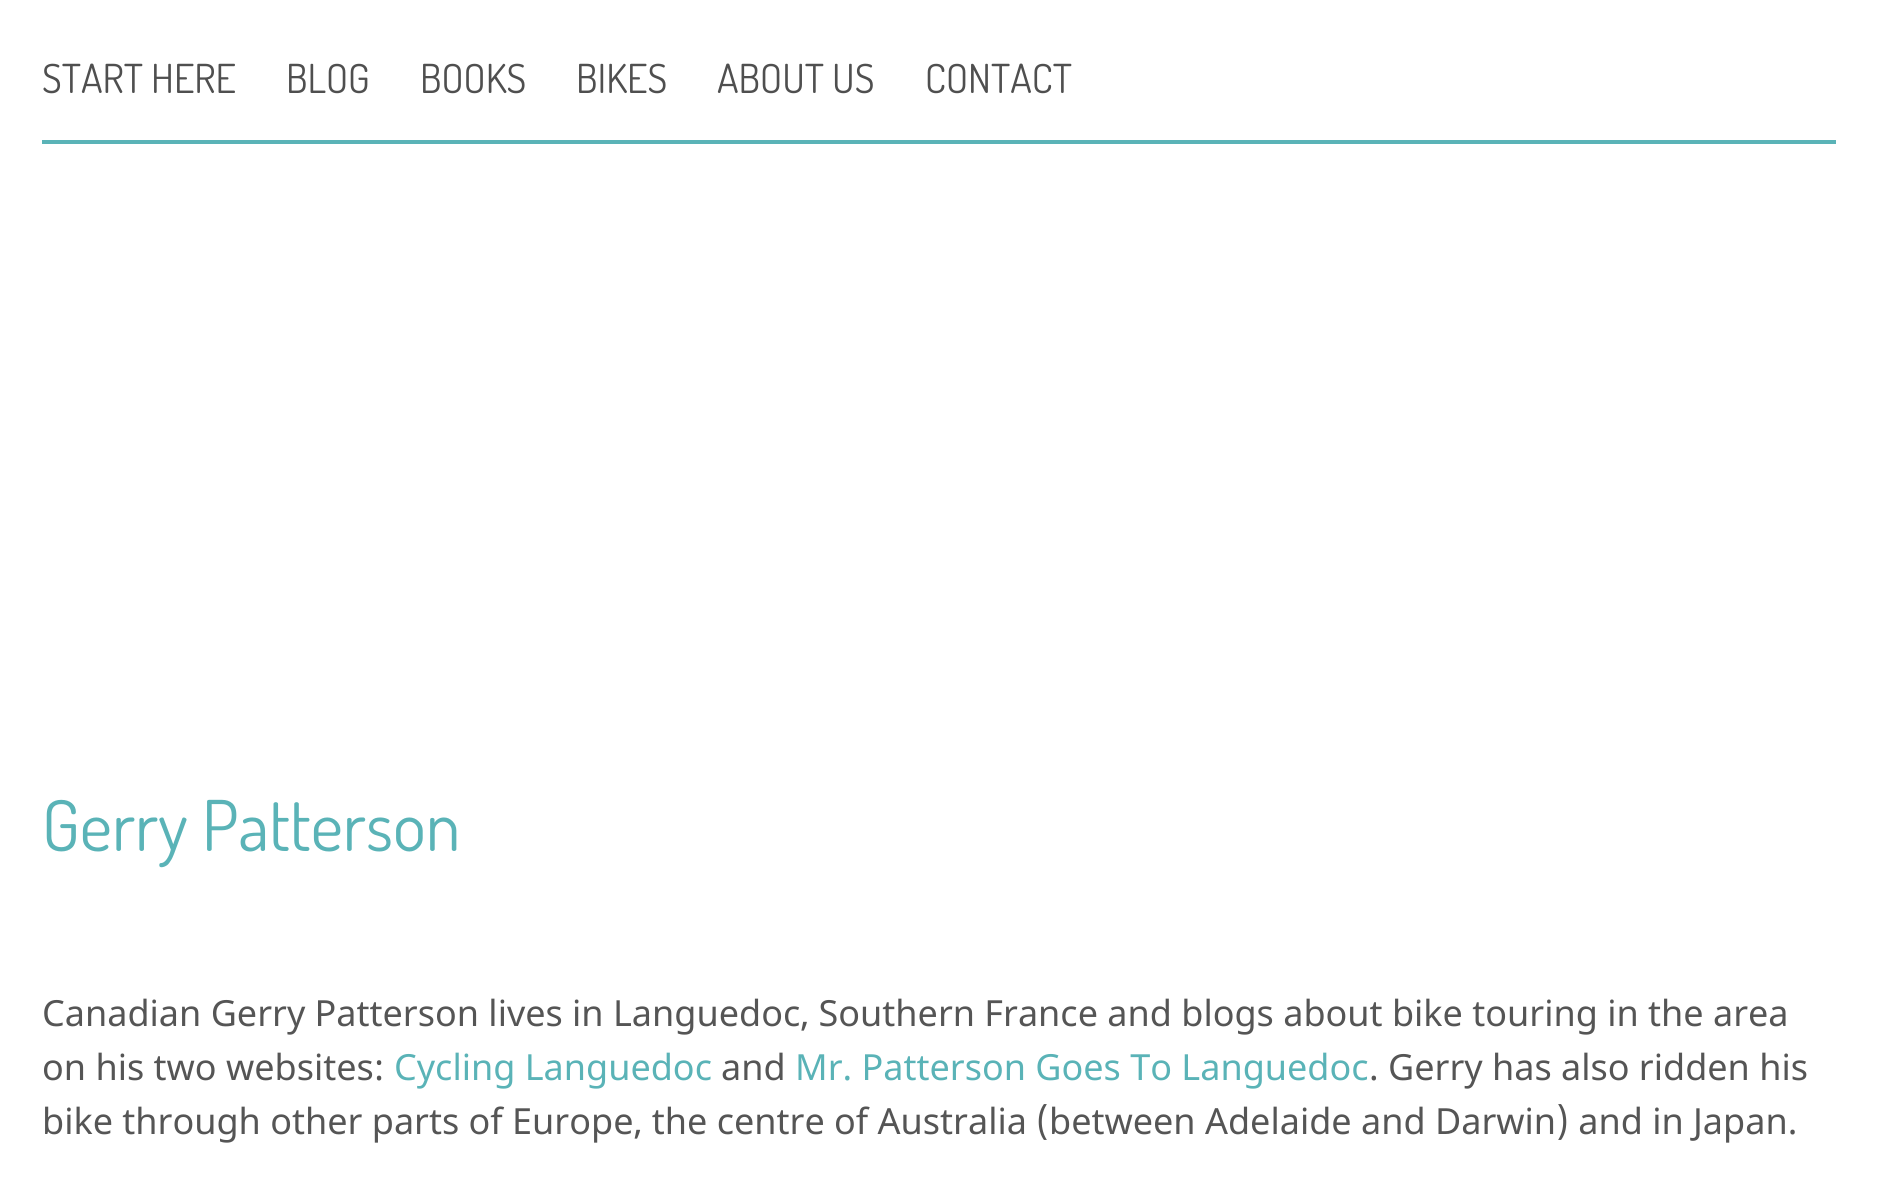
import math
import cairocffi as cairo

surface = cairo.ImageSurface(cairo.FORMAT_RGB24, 1877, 1191)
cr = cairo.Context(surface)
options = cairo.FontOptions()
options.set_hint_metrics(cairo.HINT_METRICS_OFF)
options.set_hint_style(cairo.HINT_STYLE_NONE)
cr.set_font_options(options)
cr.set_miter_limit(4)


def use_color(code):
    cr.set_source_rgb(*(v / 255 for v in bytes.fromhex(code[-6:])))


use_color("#ffffff")
cr.paint()
cr.select_font_face("Dosis")
cr.set_font_size(40)
use_color("#4f4f4f")
cr.move_to(42, 93)
cr.show_text("START HERE")
cr.move_to(286, 93)
cr.show_text("BLOG")
cr.move_to(420, 93)
cr.show_text("BOOKS")
cr.move_to(576, 93)
cr.show_text("BIKES")
cr.move_to(717, 93)
cr.show_text("ABOUT US")
cr.move_to(925, 93)
cr.show_text("CONTACT")
use_color("#5ab3b7")
cr.rectangle(42, 140, 1794, 4)
cr.fill()
cr.set_font_size(70)
cr.move_to(42, 851)
cr.show_text("Gerry Patterson")
cr.select_font_face("Noto Sans")
cr.set_font_size(36)
use_color("#555555")
cr.move_to(42, 1026)
cr.show_text("Canadian Gerry Patterson lives in Languedoc, Southern France and blogs about bike touring in the area")
cr.move_to(42, 1080)
cr.show_text("on his two websites:")
use_color("#5ab3b7")
cr.move_to(394, 1080)
cr.show_text("Cycling Languedoc")
use_color("#555555")
cr.move_to(721, 1080)
cr.show_text("and")
use_color("#5ab3b7")
cr.move_to(795, 1080)
cr.show_text("Mr. Patterson Goes To Languedoc")
use_color("#555555")
cr.move_to(1369, 1080)
cr.show_text(". Gerry has also ridden his")
cr.move_to(42, 1134)
cr.show_text("bike through other parts of Europe, the centre of Australia (between Adelaide and Darwin) and in Japan.")
surface.write_to_png("result.png")
